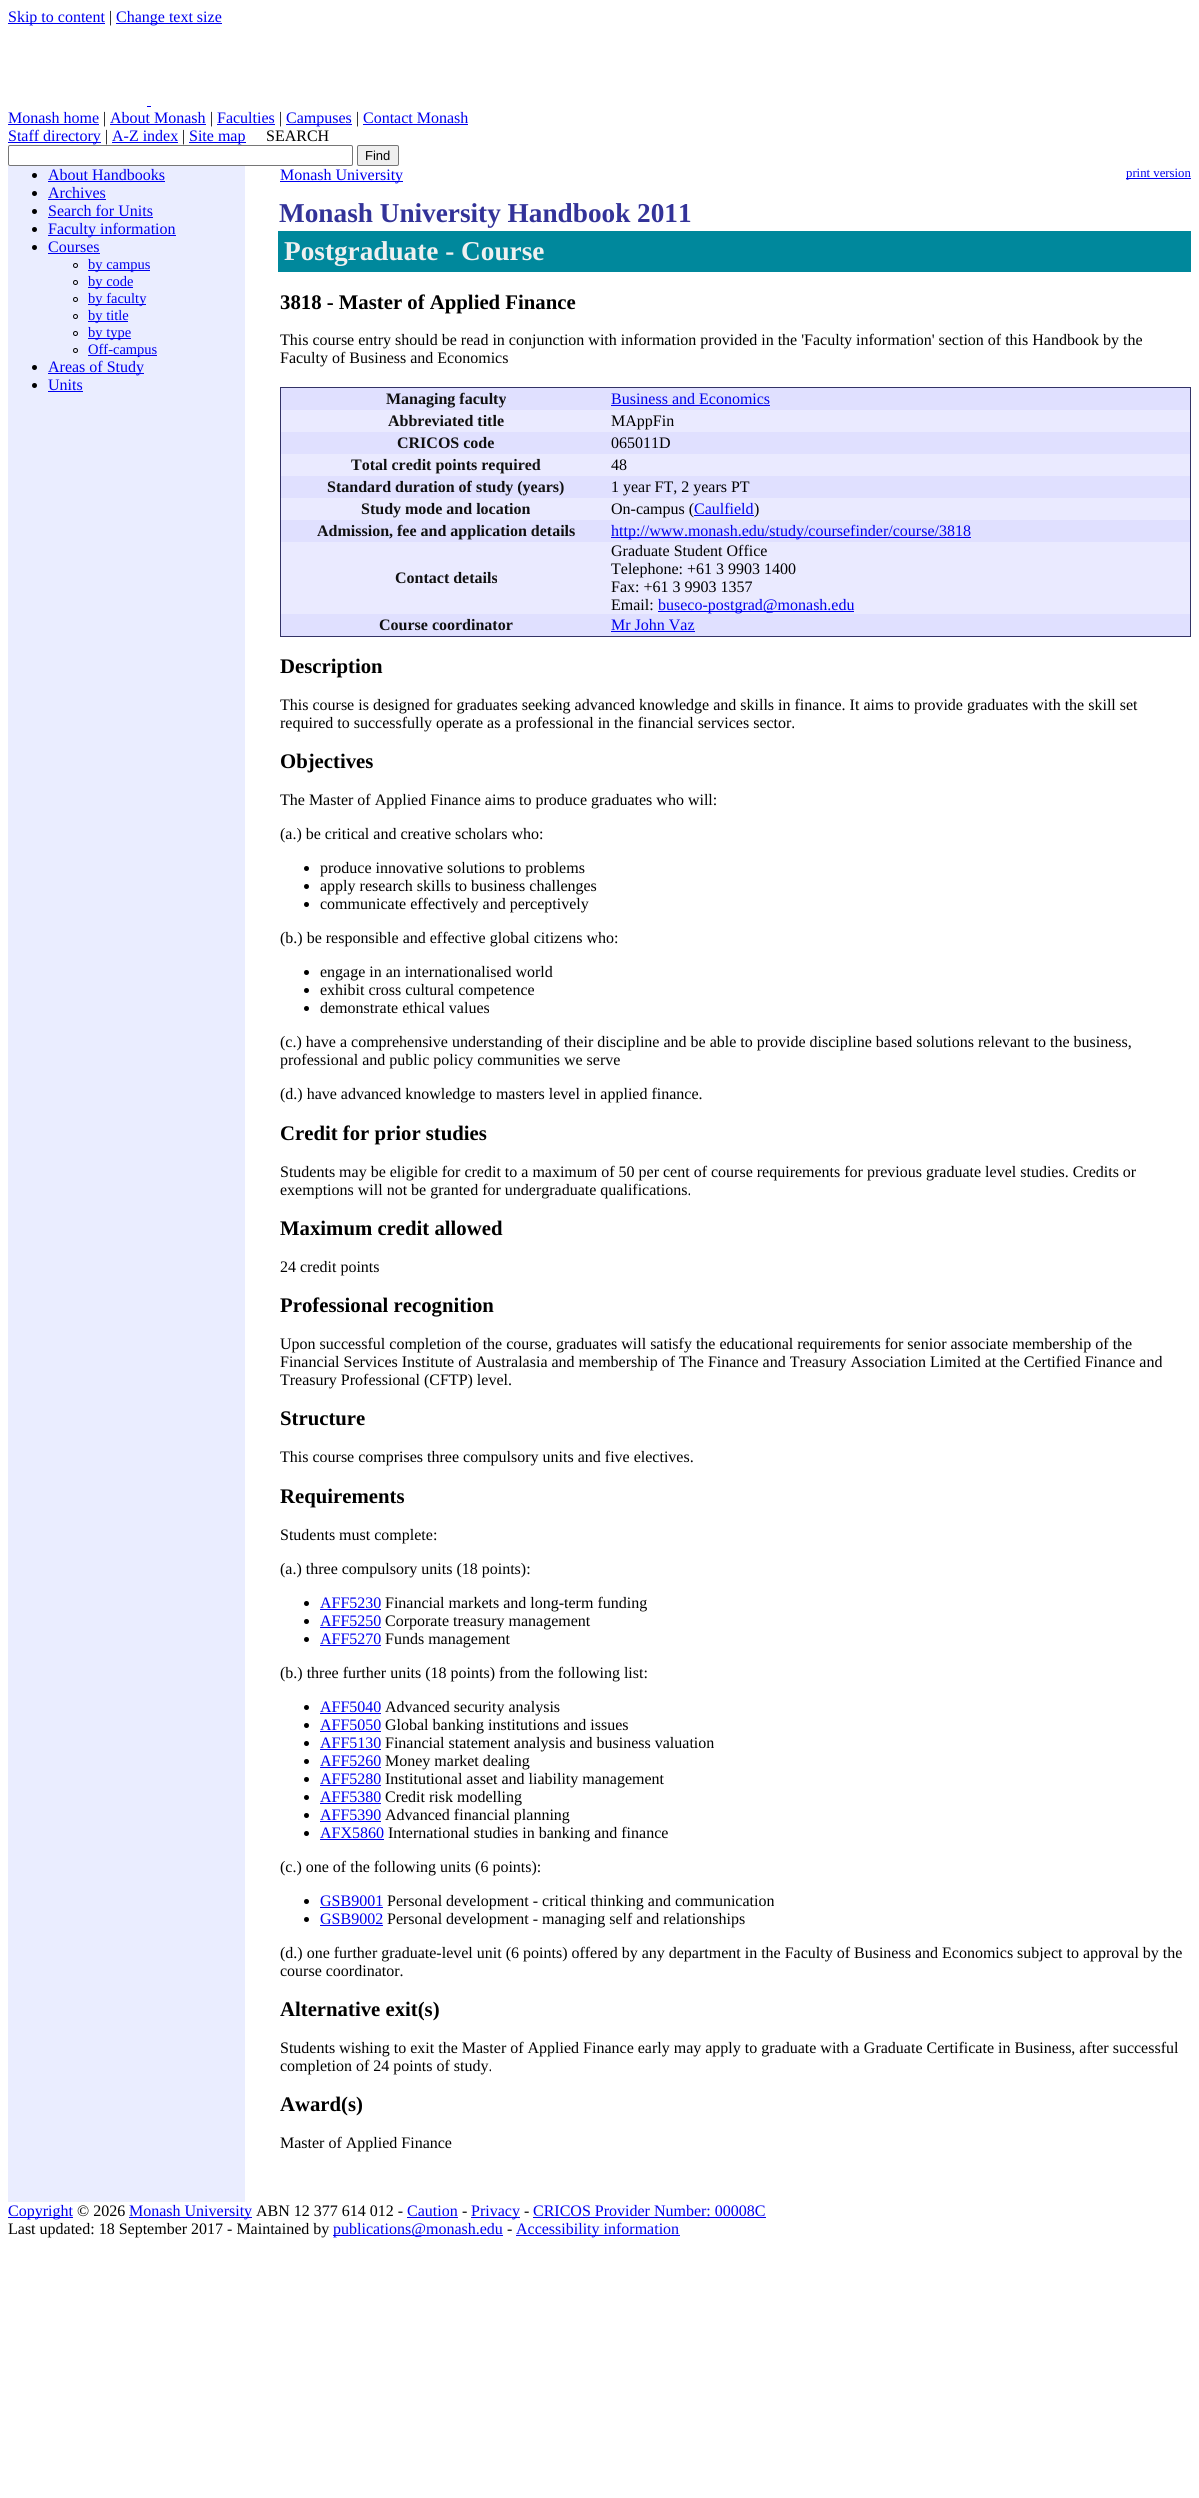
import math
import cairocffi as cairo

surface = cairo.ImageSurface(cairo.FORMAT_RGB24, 1199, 2498)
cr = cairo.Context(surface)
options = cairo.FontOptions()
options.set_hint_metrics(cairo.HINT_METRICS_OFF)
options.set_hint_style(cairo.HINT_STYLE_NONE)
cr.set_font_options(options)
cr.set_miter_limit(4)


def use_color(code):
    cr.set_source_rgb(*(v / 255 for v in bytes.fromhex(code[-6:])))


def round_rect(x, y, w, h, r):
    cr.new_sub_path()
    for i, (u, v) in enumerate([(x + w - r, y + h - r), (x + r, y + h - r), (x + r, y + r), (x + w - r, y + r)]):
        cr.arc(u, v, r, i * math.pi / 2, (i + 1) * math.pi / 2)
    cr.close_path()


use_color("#ffffff")
cr.paint()
use_color("#0000ee")
cr.rectangle(8, 23, 97, 1)
cr.fill()
cr.select_font_face("Liberation Serif")
cr.set_font_size(16)
cr.move_to(8, 22)
cr.show_text("Skip to content")
use_color("#000000")
cr.move_to(109, 22)
cr.show_text("|")
use_color("#0000ee")
cr.rectangle(116, 23, 106, 1)
cr.fill()
cr.move_to(116, 22)
cr.show_text("Change text size")
cr.rectangle(147, 106, 4, 1)
cr.fill()
cr.move_to(8, 123)
cr.show_text("Monash home")
cr.rectangle(8, 124, 91, 1)
cr.fill()
use_color("#000000")
cr.move_to(103, 123)
cr.show_text("|")
use_color("#0000ee")
cr.move_to(110, 123)
cr.show_text("About Monash")
cr.rectangle(110, 124, 96, 1)
cr.fill()
use_color("#000000")
cr.move_to(210, 123)
cr.show_text("|")
use_color("#0000ee")
cr.move_to(217, 123)
cr.show_text("Faculties")
cr.rectangle(217, 124, 58, 1)
cr.fill()
use_color("#000000")
cr.move_to(279, 123)
cr.show_text("|")
use_color("#0000ee")
cr.rectangle(286, 124, 66, 1)
cr.fill()
cr.move_to(286, 123)
cr.show_text("Campuses")
use_color("#000000")
cr.move_to(356, 123)
cr.show_text("|")
use_color("#0000ee")
cr.move_to(363, 123)
cr.show_text("Contact Monash")
cr.rectangle(363, 124, 105, 1)
cr.fill()
cr.rectangle(8, 142, 93, 1)
cr.fill()
cr.move_to(8, 141)
cr.show_text("Staff directory")
use_color("#000000")
cr.move_to(105, 141)
cr.show_text("|")
use_color("#0000ee")
cr.move_to(112, 141)
cr.show_text("A-Z index")
cr.rectangle(112, 142, 66, 1)
cr.fill()
use_color("#000000")
cr.move_to(182, 141)
cr.show_text("|")
use_color("#0000ee")
cr.rectangle(189, 142, 57, 1)
cr.fill()
cr.move_to(189, 141)
cr.show_text("Site map")
use_color("#000000")
cr.move_to(266, 141)
cr.show_text("SEARCH")
round_rect(8.5, 145.5, 344, 20, 1.5)
use_color("#767676")
cr.set_line_width(1)
cr.stroke()
use_color("#efefef")
round_rect(357.5, 145.5, 41, 20, 1.5)
cr.fill_preserve()
use_color("#767676")
cr.stroke()
cr.select_font_face("Liberation Sans")
cr.set_font_size(13)
use_color("#000000")
cr.move_to(365, 160)
cr.show_text("Find")
use_color("#eaedff")
cr.rectangle(8, 166, 237, 2036)
cr.fill()
use_color("#000000")
cr.arc(34.5, 175.5, 2.5, 0, 2 * math.pi)
cr.fill()
cr.select_font_face("Liberation Serif")
cr.set_font_size(16)
use_color("#0000ee")
cr.move_to(48, 180)
cr.show_text("About Handbooks")
cr.rectangle(48, 181, 117, 1)
cr.fill()
use_color("#000000")
cr.arc(34.5, 193.5, 2.5, 0, 2 * math.pi)
cr.fill()
use_color("#0000ee")
cr.move_to(48, 198)
cr.show_text("Archives")
cr.rectangle(48, 199, 58, 1)
cr.fill()
use_color("#000000")
cr.arc(34.5, 211.5, 2.5, 0, 2 * math.pi)
cr.fill()
use_color("#0000ee")
cr.move_to(48, 216)
cr.show_text("Search for Units")
cr.rectangle(48, 217, 105, 1)
cr.fill()
use_color("#000000")
cr.arc(34.5, 229.5, 2.5, 0, 2 * math.pi)
cr.fill()
use_color("#0000ee")
cr.rectangle(48, 235, 128, 1)
cr.fill()
cr.move_to(48, 234)
cr.show_text("Faculty information")
use_color("#000000")
cr.new_path()
cr.arc(34.5, 247.5, 2.5, 0, 2 * math.pi)
cr.fill()
use_color("#0000ee")
cr.move_to(48, 252)
cr.show_text("Courses")
cr.rectangle(48, 253, 52, 1)
cr.fill()
cr.arc(75.5, 265.5, 2, 0, 2 * math.pi)
use_color("#000000")
cr.stroke()
use_color("#0000ee")
cr.rectangle(88, 270, 62, 1)
cr.fill()
cr.set_font_size(14.5)
cr.move_to(88, 269)
cr.show_text("by campus")
cr.new_path()
cr.arc(75.5, 282.5, 2, 0, 2 * math.pi)
use_color("#000000")
cr.stroke()
use_color("#0000ee")
cr.rectangle(88, 287, 45, 1)
cr.fill()
cr.move_to(88, 286)
cr.show_text("by code")
cr.new_path()
cr.arc(75.5, 299.5, 2, 0, 2 * math.pi)
use_color("#000000")
cr.stroke()
use_color("#0000ee")
cr.rectangle(88, 304, 58, 1)
cr.fill()
cr.move_to(88, 303)
cr.show_text("by faculty")
cr.new_path()
cr.arc(75.5, 316.5, 2, 0, 2 * math.pi)
use_color("#000000")
cr.stroke()
use_color("#0000ee")
cr.rectangle(88, 321, 40, 1)
cr.fill()
cr.move_to(88, 320)
cr.show_text("by title")
cr.new_path()
cr.arc(75.5, 333.5, 2, 0, 2 * math.pi)
use_color("#000000")
cr.stroke()
use_color("#0000ee")
cr.rectangle(88, 338, 43, 1)
cr.fill()
cr.move_to(88, 337)
cr.show_text("by type")
cr.new_path()
cr.arc(75.5, 350.5, 2, 0, 2 * math.pi)
use_color("#000000")
cr.stroke()
use_color("#0000ee")
cr.rectangle(88, 355, 69, 1)
cr.fill()
cr.move_to(88, 354)
cr.show_text("Off-campus")
use_color("#000000")
cr.new_path()
cr.arc(34.5, 367.5, 2.5, 0, 2 * math.pi)
cr.fill()
use_color("#0000ee")
cr.rectangle(48, 373, 96, 1)
cr.fill()
cr.set_font_size(16)
cr.move_to(48, 372)
cr.show_text("Areas of Study")
use_color("#000000")
cr.new_path()
cr.arc(34.5, 385.5, 2.5, 0, 2 * math.pi)
cr.fill()
use_color("#0000ee")
cr.move_to(48, 390)
cr.show_text("Units")
cr.rectangle(48, 391, 35, 1)
cr.fill()
cr.rectangle(280, 181, 123, 1)
cr.fill()
cr.move_to(280, 180)
cr.show_text("Monash University")
cr.rectangle(1126, 178, 65, 1)
cr.fill()
cr.set_font_size(12.75)
cr.move_to(1126, 177)
cr.show_text("print version")
cr.select_font_face("Liberation Serif", cairo.FONT_SLANT_NORMAL, cairo.FONT_WEIGHT_BOLD)
cr.set_font_size(27.25)
use_color("#333399")
cr.move_to(279, 222)
cr.show_text("Monash University Handbook 2011")
use_color("#00889c")
cr.rectangle(278, 231, 913, 41)
cr.fill()
use_color("#f0f0f0")
cr.move_to(284, 260)
cr.show_text("Postgraduate - Course")
cr.set_font_size(20.75)
use_color("#000000")
cr.move_to(280, 309)
cr.show_text("3818 - Master of Applied Finance")
cr.select_font_face("Liberation Serif")
cr.set_font_size(16)
cr.move_to(280, 345)
cr.show_text("This course entry should be read in conjunction with information provided in the 'Faculty information' section of this Handbook by the")
cr.move_to(280, 363)
cr.show_text("Faculty of Business and Economics")
use_color("#333366")
cr.rectangle(280, 387, 911, 1)
cr.fill()
cr.rectangle(1190, 387, 1, 250)
cr.fill()
cr.rectangle(280, 636, 911, 1)
cr.fill()
cr.rectangle(280, 387, 1, 250)
cr.fill()
use_color("#e0e0ff")
cr.rectangle(281, 388, 909, 22)
cr.fill()
cr.select_font_face("Liberation Serif", cairo.FONT_SLANT_NORMAL, cairo.FONT_WEIGHT_BOLD)
use_color("#101010")
cr.move_to(386, 404)
cr.show_text("Managing faculty")
cr.select_font_face("Liberation Serif")
use_color("#0000ee")
cr.move_to(611, 404)
cr.show_text("Business and Economics")
cr.rectangle(611, 405, 159, 1)
cr.fill()
use_color("#eaeaff")
cr.rectangle(281, 410, 909, 22)
cr.fill()
cr.select_font_face("Liberation Serif", cairo.FONT_SLANT_NORMAL, cairo.FONT_WEIGHT_BOLD)
use_color("#101010")
cr.move_to(388, 426)
cr.show_text("Abbreviated title")
cr.select_font_face("Liberation Serif")
use_color("#000000")
cr.move_to(611, 426)
cr.show_text("MAppFin")
use_color("#e0e0ff")
cr.rectangle(281, 432, 909, 22)
cr.fill()
cr.select_font_face("Liberation Serif", cairo.FONT_SLANT_NORMAL, cairo.FONT_WEIGHT_BOLD)
use_color("#101010")
cr.move_to(397, 448)
cr.show_text("CRICOS code")
cr.select_font_face("Liberation Serif")
use_color("#000000")
cr.move_to(611, 448)
cr.show_text("065011D")
use_color("#eaeaff")
cr.rectangle(281, 454, 909, 22)
cr.fill()
cr.select_font_face("Liberation Serif", cairo.FONT_SLANT_NORMAL, cairo.FONT_WEIGHT_BOLD)
use_color("#101010")
cr.move_to(351, 470)
cr.show_text("Total credit points required")
cr.select_font_face("Liberation Serif")
use_color("#000000")
cr.move_to(611, 470)
cr.show_text("48")
use_color("#e0e0ff")
cr.rectangle(281, 476, 909, 22)
cr.fill()
cr.select_font_face("Liberation Serif", cairo.FONT_SLANT_NORMAL, cairo.FONT_WEIGHT_BOLD)
use_color("#101010")
cr.move_to(327, 492)
cr.show_text("Standard duration of study (years)")
cr.select_font_face("Liberation Serif")
use_color("#000000")
cr.move_to(611, 492)
cr.show_text("1 year FT, 2 years PT")
use_color("#eaeaff")
cr.rectangle(281, 498, 909, 22)
cr.fill()
cr.select_font_face("Liberation Serif", cairo.FONT_SLANT_NORMAL, cairo.FONT_WEIGHT_BOLD)
use_color("#101010")
cr.move_to(361, 514)
cr.show_text("Study mode and location")
cr.select_font_face("Liberation Serif")
use_color("#000000")
cr.move_to(611, 514)
cr.show_text("On-campus (")
use_color("#0000ee")
cr.move_to(694, 514)
cr.show_text("Caulfield")
cr.rectangle(694, 515, 60, 1)
cr.fill()
use_color("#000000")
cr.move_to(754, 514)
cr.show_text(")")
use_color("#e0e0ff")
cr.rectangle(281, 520, 909, 22)
cr.fill()
cr.select_font_face("Liberation Serif", cairo.FONT_SLANT_NORMAL, cairo.FONT_WEIGHT_BOLD)
use_color("#101010")
cr.move_to(317, 536)
cr.show_text("Admission, fee and application details")
use_color("#0000ee")
cr.rectangle(611, 537, 360, 1)
cr.fill()
cr.select_font_face("Liberation Serif")
cr.move_to(611, 536)
cr.show_text("http://www.monash.edu/study/coursefinder/course/3818")
use_color("#eaeaff")
cr.rectangle(281, 542, 909, 72)
cr.fill()
cr.select_font_face("Liberation Serif", cairo.FONT_SLANT_NORMAL, cairo.FONT_WEIGHT_BOLD)
use_color("#101010")
cr.move_to(395, 583)
cr.show_text("Contact details")
cr.select_font_face("Liberation Serif")
use_color("#000000")
cr.move_to(611, 556)
cr.show_text("Graduate Student Office")
cr.move_to(611, 574)
cr.show_text("Telephone: +61 3 9903 1400")
cr.move_to(611, 592)
cr.show_text("Fax: +61 3 9903 1357")
cr.move_to(611, 610)
cr.show_text("Email:")
use_color("#0000ee")
cr.rectangle(658, 611, 196, 1)
cr.fill()
cr.move_to(658, 610)
cr.show_text("buseco-postgrad@monash.edu")
use_color("#e0e0ff")
cr.rectangle(281, 614, 909, 22)
cr.fill()
cr.select_font_face("Liberation Serif", cairo.FONT_SLANT_NORMAL, cairo.FONT_WEIGHT_BOLD)
use_color("#101010")
cr.move_to(379, 630)
cr.show_text("Course coordinator")
cr.select_font_face("Liberation Serif")
use_color("#0000ee")
cr.move_to(611, 630)
cr.show_text("Mr John Vaz")
cr.rectangle(611, 631, 84, 1)
cr.fill()
cr.select_font_face("Liberation Serif", cairo.FONT_SLANT_NORMAL, cairo.FONT_WEIGHT_BOLD)
cr.set_font_size(20.75)
use_color("#000000")
cr.move_to(280, 673)
cr.show_text("Description")
cr.select_font_face("Liberation Serif")
cr.set_font_size(16)
cr.move_to(280, 710)
cr.show_text("This course is designed for graduates seeking advanced knowledge and skills in finance. It aims to provide graduates with the skill set")
cr.move_to(280, 728)
cr.show_text("required to successfully operate as a professional in the financial services sector.")
cr.select_font_face("Liberation Serif", cairo.FONT_SLANT_NORMAL, cairo.FONT_WEIGHT_BOLD)
cr.set_font_size(20.75)
cr.move_to(280, 768)
cr.show_text("Objectives")
cr.select_font_face("Liberation Serif")
cr.set_font_size(16)
cr.move_to(280, 805)
cr.show_text("The Master of Applied Finance aims to produce graduates who will:")
cr.move_to(280, 839)
cr.show_text("(a.) be critical and creative scholars who:")
cr.new_path()
cr.arc(306.5, 868.5, 2.5, 0, 2 * math.pi)
cr.fill()
cr.move_to(320, 873)
cr.show_text("produce innovative solutions to problems")
cr.new_path()
cr.arc(306.5, 886.5, 2.5, 0, 2 * math.pi)
cr.fill()
cr.move_to(320, 891)
cr.show_text("apply research skills to business challenges")
cr.new_path()
cr.arc(306.5, 904.5, 2.5, 0, 2 * math.pi)
cr.fill()
cr.move_to(320, 909)
cr.show_text("communicate effectively and perceptively")
cr.move_to(280, 943)
cr.show_text("(b.) be responsible and effective global citizens who:")
cr.new_path()
cr.arc(306.5, 972.5, 2.5, 0, 2 * math.pi)
cr.fill()
cr.move_to(320, 977)
cr.show_text("engage in an internationalised world")
cr.new_path()
cr.arc(306.5, 990.5, 2.5, 0, 2 * math.pi)
cr.fill()
cr.move_to(320, 995)
cr.show_text("exhibit cross cultural competence")
cr.new_path()
cr.arc(306.5, 1008.5, 2.5, 0, 2 * math.pi)
cr.fill()
cr.move_to(320, 1013)
cr.show_text("demonstrate ethical values")
cr.move_to(280, 1047)
cr.show_text("(c.) have a comprehensive understanding of their discipline and be able to provide discipline based solutions relevant to the business,")
cr.move_to(280, 1065)
cr.show_text("professional and public policy communities we serve")
cr.move_to(280, 1099)
cr.show_text("(d.) have advanced knowledge to masters level in applied finance.")
cr.select_font_face("Liberation Serif", cairo.FONT_SLANT_NORMAL, cairo.FONT_WEIGHT_BOLD)
cr.set_font_size(20.75)
cr.move_to(280, 1140)
cr.show_text("Credit for prior studies")
cr.select_font_face("Liberation Serif")
cr.set_font_size(16)
cr.move_to(280, 1177)
cr.show_text("Students may be eligible for credit to a maximum of 50 per cent of course requirements for previous graduate level studies. Credits or")
cr.move_to(280, 1195)
cr.show_text("exemptions will not be granted for undergraduate qualifications.")
cr.select_font_face("Liberation Serif", cairo.FONT_SLANT_NORMAL, cairo.FONT_WEIGHT_BOLD)
cr.set_font_size(20.75)
cr.move_to(280, 1235)
cr.show_text("Maximum credit allowed")
cr.select_font_face("Liberation Serif")
cr.set_font_size(16)
cr.move_to(280, 1272)
cr.show_text("24 credit points")
cr.select_font_face("Liberation Serif", cairo.FONT_SLANT_NORMAL, cairo.FONT_WEIGHT_BOLD)
cr.set_font_size(20.75)
cr.move_to(280, 1312)
cr.show_text("Professional recognition")
cr.select_font_face("Liberation Serif")
cr.set_font_size(16)
cr.move_to(280, 1349)
cr.show_text("Upon successful completion of the course, graduates will satisfy the educational requirements for senior associate membership of the")
cr.move_to(280, 1367)
cr.show_text("Financial Services Institute of Australasia and membership of The Finance and Treasury Association Limited at the Certified Finance and")
cr.move_to(280, 1385)
cr.show_text("Treasury Professional (CFTP) level.")
cr.select_font_face("Liberation Serif", cairo.FONT_SLANT_NORMAL, cairo.FONT_WEIGHT_BOLD)
cr.set_font_size(20.75)
cr.move_to(280, 1425)
cr.show_text("Structure")
cr.select_font_face("Liberation Serif")
cr.set_font_size(16)
cr.move_to(280, 1462)
cr.show_text("This course comprises three compulsory units and five electives.")
cr.select_font_face("Liberation Serif", cairo.FONT_SLANT_NORMAL, cairo.FONT_WEIGHT_BOLD)
cr.set_font_size(20.75)
cr.move_to(280, 1503)
cr.show_text("Requirements")
cr.select_font_face("Liberation Serif")
cr.set_font_size(16)
cr.move_to(280, 1540)
cr.show_text("Students must complete:")
cr.move_to(280, 1574)
cr.show_text("(a.) three compulsory units (18 points):")
cr.new_path()
cr.arc(306.5, 1603.5, 2.5, 0, 2 * math.pi)
cr.fill()
use_color("#0000ee")
cr.move_to(320, 1608)
cr.show_text("AFF5230")
cr.rectangle(320, 1609, 61, 1)
cr.fill()
use_color("#000000")
cr.move_to(385, 1608)
cr.show_text("Financial markets and long-term funding")
cr.new_path()
cr.arc(306.5, 1621.5, 2.5, 0, 2 * math.pi)
cr.fill()
use_color("#0000ee")
cr.move_to(320, 1626)
cr.show_text("AFF5250")
cr.rectangle(320, 1627, 61, 1)
cr.fill()
use_color("#000000")
cr.move_to(385, 1626)
cr.show_text("Corporate treasury management")
cr.new_path()
cr.arc(306.5, 1639.5, 2.5, 0, 2 * math.pi)
cr.fill()
use_color("#0000ee")
cr.move_to(320, 1644)
cr.show_text("AFF5270")
cr.rectangle(320, 1645, 61, 1)
cr.fill()
use_color("#000000")
cr.move_to(385, 1644)
cr.show_text("Funds management")
cr.move_to(280, 1678)
cr.show_text("(b.) three further units (18 points) from the following list:")
cr.new_path()
cr.arc(306.5, 1707.5, 2.5, 0, 2 * math.pi)
cr.fill()
use_color("#0000ee")
cr.move_to(320, 1712)
cr.show_text("AFF5040")
cr.rectangle(320, 1713, 61, 1)
cr.fill()
use_color("#000000")
cr.move_to(385, 1712)
cr.show_text("Advanced security analysis")
cr.new_path()
cr.arc(306.5, 1725.5, 2.5, 0, 2 * math.pi)
cr.fill()
use_color("#0000ee")
cr.move_to(320, 1730)
cr.show_text("AFF5050")
cr.rectangle(320, 1731, 61, 1)
cr.fill()
use_color("#000000")
cr.move_to(385, 1730)
cr.show_text("Global banking institutions and issues")
cr.new_path()
cr.arc(306.5, 1743.5, 2.5, 0, 2 * math.pi)
cr.fill()
use_color("#0000ee")
cr.move_to(320, 1748)
cr.show_text("AFF5130")
cr.rectangle(320, 1749, 61, 1)
cr.fill()
use_color("#000000")
cr.move_to(385, 1748)
cr.show_text("Financial statement analysis and business valuation")
cr.new_path()
cr.arc(306.5, 1761.5, 2.5, 0, 2 * math.pi)
cr.fill()
use_color("#0000ee")
cr.move_to(320, 1766)
cr.show_text("AFF5260")
cr.rectangle(320, 1767, 61, 1)
cr.fill()
use_color("#000000")
cr.move_to(385, 1766)
cr.show_text("Money market dealing")
cr.new_path()
cr.arc(306.5, 1779.5, 2.5, 0, 2 * math.pi)
cr.fill()
use_color("#0000ee")
cr.move_to(320, 1784)
cr.show_text("AFF5280")
cr.rectangle(320, 1785, 61, 1)
cr.fill()
use_color("#000000")
cr.move_to(385, 1784)
cr.show_text("Institutional asset and liability management")
cr.new_path()
cr.arc(306.5, 1797.5, 2.5, 0, 2 * math.pi)
cr.fill()
use_color("#0000ee")
cr.move_to(320, 1802)
cr.show_text("AFF5380")
cr.rectangle(320, 1803, 61, 1)
cr.fill()
use_color("#000000")
cr.move_to(385, 1802)
cr.show_text("Credit risk modelling")
cr.new_path()
cr.arc(306.5, 1815.5, 2.5, 0, 2 * math.pi)
cr.fill()
use_color("#0000ee")
cr.move_to(320, 1820)
cr.show_text("AFF5390")
cr.rectangle(320, 1821, 61, 1)
cr.fill()
use_color("#000000")
cr.move_to(385, 1820)
cr.show_text("Advanced financial planning")
cr.new_path()
cr.arc(306.5, 1833.5, 2.5, 0, 2 * math.pi)
cr.fill()
use_color("#0000ee")
cr.move_to(320, 1838)
cr.show_text("AFX5860")
cr.rectangle(320, 1839, 64, 1)
cr.fill()
use_color("#000000")
cr.move_to(388, 1838)
cr.show_text("International studies in banking and finance")
cr.move_to(280, 1872)
cr.show_text("(c.) one of the following units (6 points):")
cr.new_path()
cr.arc(306.5, 1901.5, 2.5, 0, 2 * math.pi)
cr.fill()
use_color("#0000ee")
cr.move_to(320, 1906)
cr.show_text("GSB9001")
cr.rectangle(320, 1907, 63, 1)
cr.fill()
use_color("#000000")
cr.move_to(387, 1906)
cr.show_text("Personal development - critical thinking and communication")
cr.new_path()
cr.arc(306.5, 1919.5, 2.5, 0, 2 * math.pi)
cr.fill()
use_color("#0000ee")
cr.move_to(320, 1924)
cr.show_text("GSB9002")
cr.rectangle(320, 1925, 63, 1)
cr.fill()
use_color("#000000")
cr.move_to(387, 1924)
cr.show_text("Personal development - managing self and relationships")
cr.move_to(280, 1958)
cr.show_text("(d.) one further graduate-level unit (6 points) offered by any department in the Faculty of Business and Economics subject to approval by the")
cr.move_to(280, 1976)
cr.show_text("course coordinator.")
cr.select_font_face("Liberation Serif", cairo.FONT_SLANT_NORMAL, cairo.FONT_WEIGHT_BOLD)
cr.set_font_size(20.75)
cr.move_to(280, 2016)
cr.show_text("Alternative exit(s)")
cr.select_font_face("Liberation Serif")
cr.set_font_size(16)
cr.move_to(280, 2053)
cr.show_text("Students wishing to exit the Master of Applied Finance early may apply to graduate with a Graduate Certificate in Business, after successful")
cr.move_to(280, 2071)
cr.show_text("completion of 24 points of study.")
cr.select_font_face("Liberation Serif", cairo.FONT_SLANT_NORMAL, cairo.FONT_WEIGHT_BOLD)
cr.set_font_size(20.75)
cr.move_to(280, 2111)
cr.show_text("Award(s)")
cr.select_font_face("Liberation Serif")
cr.set_font_size(16)
cr.move_to(280, 2148)
cr.show_text("Master of Applied Finance")
use_color("#0000ee")
cr.rectangle(8, 2217, 65, 1)
cr.fill()
cr.move_to(8, 2216)
cr.show_text("Copyright")
use_color("#000000")
cr.move_to(77, 2216)
cr.show_text("© 2026")
use_color("#0000ee")
cr.rectangle(129, 2217, 123, 1)
cr.fill()
cr.move_to(129, 2216)
cr.show_text("Monash University")
use_color("#000000")
cr.move_to(256, 2216)
cr.show_text("ABN 12 377 614 012 -")
use_color("#0000ee")
cr.move_to(407, 2216)
cr.show_text("Caution")
cr.rectangle(407, 2217, 51, 1)
cr.fill()
use_color("#000000")
cr.move_to(462, 2216)
cr.show_text("-")
use_color("#0000ee")
cr.rectangle(471, 2217, 49, 1)
cr.fill()
cr.move_to(471, 2216)
cr.show_text("Privacy")
use_color("#000000")
cr.move_to(524, 2216)
cr.show_text("-")
use_color("#0000ee")
cr.move_to(533, 2216)
cr.show_text("CRICOS Provider Number: 00008C")
cr.rectangle(533, 2217, 233, 1)
cr.fill()
use_color("#000000")
cr.move_to(8, 2234)
cr.show_text("Last updated: 18 September 2017 - Maintained by")
use_color("#0000ee")
cr.rectangle(333, 2235, 170, 1)
cr.fill()
cr.move_to(333, 2234)
cr.show_text("publications@monash.edu")
use_color("#000000")
cr.move_to(507, 2234)
cr.show_text("-")
use_color("#0000ee")
cr.rectangle(516, 2235, 164, 1)
cr.fill()
cr.move_to(516, 2234)
cr.show_text("Accessibility information")
surface.write_to_png("result.png")
